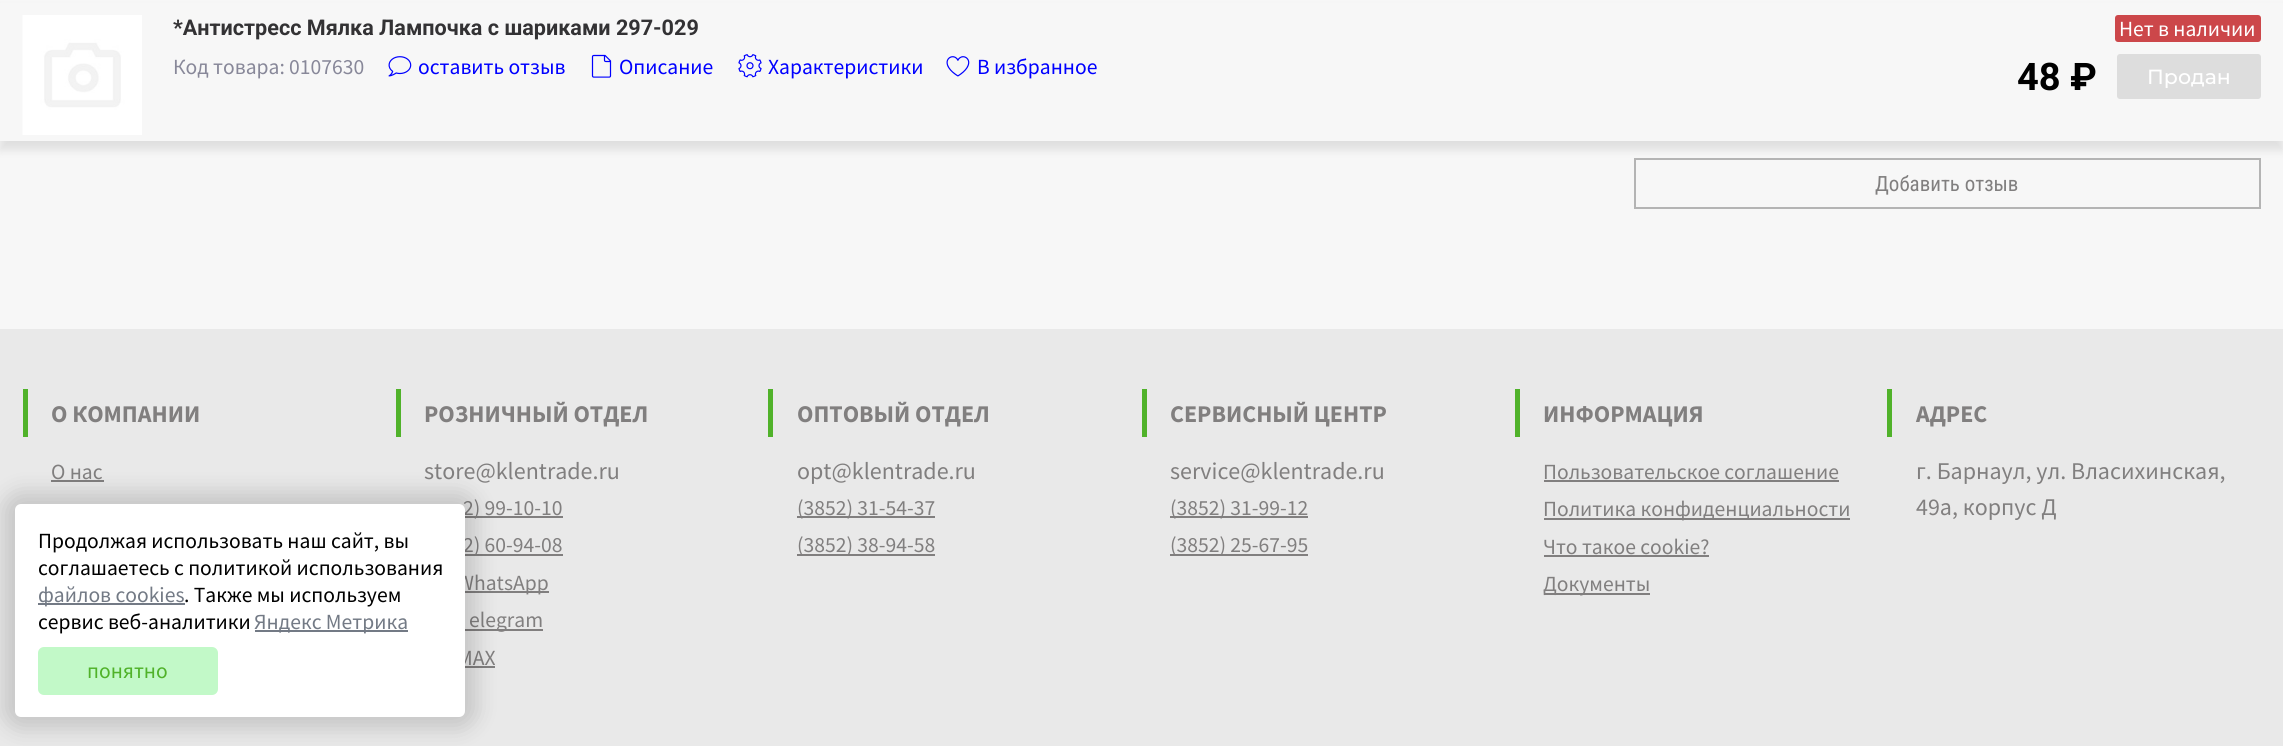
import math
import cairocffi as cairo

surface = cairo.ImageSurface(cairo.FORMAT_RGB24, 2283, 746)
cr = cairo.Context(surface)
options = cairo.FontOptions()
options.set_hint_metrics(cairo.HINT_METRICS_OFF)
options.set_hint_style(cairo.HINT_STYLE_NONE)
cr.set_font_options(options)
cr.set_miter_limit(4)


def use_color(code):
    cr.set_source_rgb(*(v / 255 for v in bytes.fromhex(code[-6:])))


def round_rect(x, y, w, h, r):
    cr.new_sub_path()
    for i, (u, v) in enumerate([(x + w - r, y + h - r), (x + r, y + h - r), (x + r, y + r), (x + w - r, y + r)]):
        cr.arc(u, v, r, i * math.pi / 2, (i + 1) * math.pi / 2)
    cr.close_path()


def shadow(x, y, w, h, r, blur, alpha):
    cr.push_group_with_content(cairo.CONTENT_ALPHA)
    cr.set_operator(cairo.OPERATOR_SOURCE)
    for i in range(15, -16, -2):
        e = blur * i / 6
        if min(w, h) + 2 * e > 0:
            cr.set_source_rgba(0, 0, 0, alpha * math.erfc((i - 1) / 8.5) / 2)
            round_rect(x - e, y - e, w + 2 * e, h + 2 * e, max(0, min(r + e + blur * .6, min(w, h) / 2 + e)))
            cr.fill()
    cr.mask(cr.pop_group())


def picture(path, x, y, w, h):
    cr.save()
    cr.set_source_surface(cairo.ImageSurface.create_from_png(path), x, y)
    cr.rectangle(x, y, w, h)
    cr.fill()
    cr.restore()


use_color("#f7f7f7")
cr.paint()
cr.rectangle(1635, 159, 625, 49)
use_color("#b4b4b4")
cr.stroke()
use_color("#000000")
shadow(0, 9, 2283, 141, 0, 4.5, 0.1)
use_color("#f7f7f7")
cr.rectangle(0, 3, 2283, 138)
cr.fill()
picture("img1.png", 22, 15, 120, 120)
cr.select_font_face("Roboto", cairo.FONT_SLANT_NORMAL, cairo.FONT_WEIGHT_BOLD)
cr.set_font_size(21.6)
use_color("#333234")
cr.move_to(173, 35)
cr.show_text("*Антистресс Мялка Лампочка с шариками 297-029")
cr.select_font_face("Source Sans Pro")
use_color("#888899")
cr.move_to(173, 74)
cr.show_text("Код товара: 0107630")
picture("img2.png", 388, 56, 24, 21)
use_color("#0000ff")
cr.move_to(418, 74)
cr.show_text("оставить отзыв")
picture("img3.png", 591, 54, 21, 24)
cr.move_to(619, 74)
cr.show_text("Описание")
picture("img4.png", 738, 54, 24, 24)
cr.move_to(768, 74)
cr.show_text("Характеристики")
picture("img5.png", 946, 56, 24, 21)
cr.move_to(977, 74)
cr.show_text("В избранное")
use_color("#cc474a")
round_rect(2115, 15, 146, 27, 3)
cr.fill()
use_color("#ffffff")
cr.move_to(2119, 36)
cr.show_text("Нет в наличии")
cr.select_font_face("Roboto", cairo.FONT_SLANT_NORMAL, cairo.FONT_WEIGHT_BOLD)
cr.set_font_size(38)
use_color("#000000")
cr.move_to(2017, 90)
cr.show_text("48 ₽")
use_color("#dddddd")
round_rect(2117, 54, 144, 45, 3)
cr.fill()
cr.select_font_face("Montserrat Medium")
cr.set_font_size(20.5)
use_color("#ffffff")
cr.move_to(2147, 84)
cr.show_text("Продан")
cr.select_font_face("Roboto Condensed")
cr.set_font_size(21)
use_color("#817f7f")
cr.move_to(1875, 191)
cr.show_text("Добавить отзыв")
use_color("#e9e9e9")
cr.rectangle(0, 329, 2283, 417)
cr.fill()
use_color("#50b22a")
cr.rectangle(23, 389, 5, 48)
cr.fill()
cr.select_font_face("Source Sans Pro", cairo.FONT_SLANT_NORMAL, cairo.FONT_WEIGHT_BOLD)
cr.set_font_size(24)
use_color("#817f7f")
cr.move_to(51, 422)
cr.show_text("О КОМПАНИИ")
cr.select_font_face("Source Sans Pro")
cr.set_font_size(21.6)
cr.move_to(51, 479)
cr.show_text("О нас")
cr.rectangle(51, 480, 53, 2)
cr.fill()
use_color("#50b22a")
cr.rectangle(396, 389, 5, 48)
cr.fill()
cr.select_font_face("Source Sans Pro", cairo.FONT_SLANT_NORMAL, cairo.FONT_WEIGHT_BOLD)
cr.set_font_size(24)
use_color("#817f7f")
cr.move_to(424, 422)
cr.show_text("РОЗНИЧНЫЙ ОТДЕЛ")
cr.select_font_face("Source Sans Pro")
cr.move_to(424, 479)
cr.show_text("store@klentrade.ru")
cr.rectangle(465, 516, 98, 2)
cr.fill()
cr.set_font_size(21.6)
cr.move_to(463, 515)
cr.show_text("2) 99-10-10")
cr.rectangle(465, 554, 98, 2)
cr.fill()
cr.move_to(463, 552)
cr.show_text("2) 60-94-08")
cr.rectangle(458, 591, 91, 2)
cr.fill()
cr.move_to(457, 590)
cr.show_text("WhatsApp")
cr.rectangle(458, 629, 85, 2)
cr.fill()
cr.move_to(469, 627)
cr.show_text("elegram")
cr.move_to(457, 665)
cr.show_text("MAX")
cr.rectangle(458, 666, 37, 2)
cr.fill()
use_color("#50b22a")
cr.rectangle(768, 389, 5, 48)
cr.fill()
cr.select_font_face("Source Sans Pro", cairo.FONT_SLANT_NORMAL, cairo.FONT_WEIGHT_BOLD)
cr.set_font_size(24)
use_color("#817f7f")
cr.move_to(797, 422)
cr.show_text("ОПТОВЫЙ ОТДЕЛ")
cr.select_font_face("Source Sans Pro")
cr.move_to(797, 479)
cr.show_text("opt@klentrade.ru")
cr.rectangle(797, 516, 138, 2)
cr.fill()
cr.set_font_size(21.6)
cr.move_to(797, 515)
cr.show_text("(3852) 31-54-37")
cr.rectangle(797, 554, 138, 2)
cr.fill()
cr.move_to(797, 552)
cr.show_text("(3852) 38-94-58")
use_color("#50b22a")
cr.rectangle(1142, 389, 5, 48)
cr.fill()
cr.select_font_face("Source Sans Pro", cairo.FONT_SLANT_NORMAL, cairo.FONT_WEIGHT_BOLD)
cr.set_font_size(24)
use_color("#817f7f")
cr.move_to(1170, 422)
cr.show_text("СЕРВИСНЫЙ ЦЕНТР")
cr.select_font_face("Source Sans Pro")
cr.move_to(1170, 479)
cr.show_text("service@klentrade.ru")
cr.rectangle(1170, 516, 138, 2)
cr.fill()
cr.set_font_size(21.6)
cr.move_to(1170, 515)
cr.show_text("(3852) 31-99-12")
cr.rectangle(1170, 554, 138, 2)
cr.fill()
cr.move_to(1170, 552)
cr.show_text("(3852) 25-67-95")
use_color("#50b22a")
cr.rectangle(1515, 389, 5, 48)
cr.fill()
cr.select_font_face("Source Sans Pro", cairo.FONT_SLANT_NORMAL, cairo.FONT_WEIGHT_BOLD)
cr.set_font_size(24)
use_color("#817f7f")
cr.move_to(1543, 422)
cr.show_text("ИНФОРМАЦИЯ")
cr.select_font_face("Source Sans Pro")
cr.set_font_size(21.6)
cr.move_to(1543, 479)
cr.show_text("Пользовательское соглашение")
cr.rectangle(1544, 480, 295, 2)
cr.fill()
cr.rectangle(1544, 518, 306, 2)
cr.fill()
cr.move_to(1543, 516)
cr.show_text("Политика конфиденциальности")
cr.move_to(1543, 554)
cr.show_text("Что такое cookie?")
cr.rectangle(1544, 555, 165, 2)
cr.fill()
cr.rectangle(1544, 593, 106, 2)
cr.fill()
cr.move_to(1543, 591)
cr.show_text("Документы")
use_color("#50b22a")
cr.rectangle(1887, 389, 5, 48)
cr.fill()
cr.select_font_face("Source Sans Pro", cairo.FONT_SLANT_NORMAL, cairo.FONT_WEIGHT_BOLD)
cr.set_font_size(24)
use_color("#817f7f")
cr.move_to(1916, 422)
cr.show_text("АДРЕС")
cr.select_font_face("Source Sans Pro")
cr.move_to(1916, 479)
cr.show_text("г. Барнаул, ул. Власихинская,")
cr.move_to(1916, 515)
cr.show_text("49а, корпус Д")
use_color("#000000")
shadow(3, 492, 474, 237, 18, 11, 0.15)
use_color("#ffffff")
round_rect(15, 504, 450, 213, 6)
cr.fill()
cr.set_font_size(21.6)
use_color("#000000")
cr.move_to(38, 548)
cr.show_text("Продолжая использовать наш сайт, вы")
cr.move_to(38, 575)
cr.show_text("соглашаетесь с политикой использования")
use_color("#737a85")
cr.rectangle(38, 603, 147, 2)
cr.fill()
cr.move_to(38, 602)
cr.show_text("файлов cookies")
use_color("#000000")
cr.move_to(184, 602)
cr.show_text(". Также мы используем")
cr.move_to(38, 629)
cr.show_text("сервис веб-аналитики")
use_color("#737a85")
cr.rectangle(255, 630, 153, 2)
cr.fill()
cr.move_to(254, 629)
cr.show_text("Яндекс Метрика")
use_color("#c2f9c8")
round_rect(38, 647, 180, 48, 6)
cr.fill()
use_color("#50b22a")
cr.move_to(87, 678)
cr.show_text("понятно")
surface.write_to_png("result.png")
